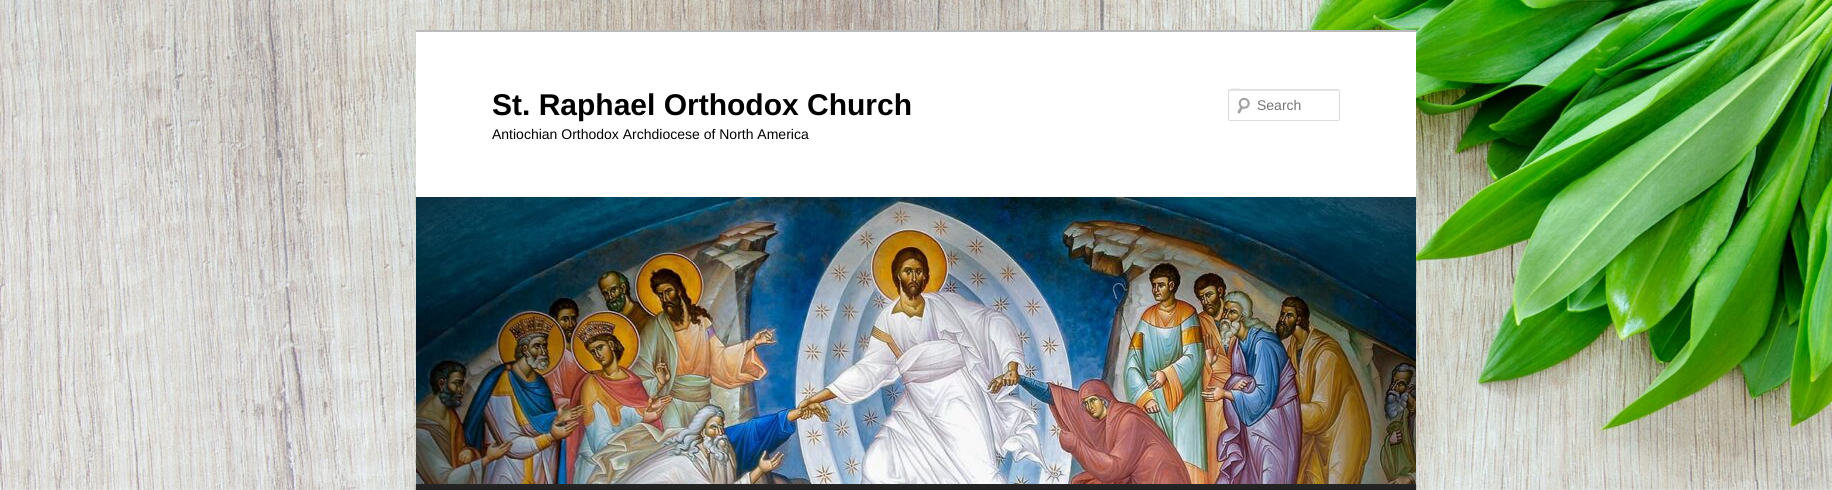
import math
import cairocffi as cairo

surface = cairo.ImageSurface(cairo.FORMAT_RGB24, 1832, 490)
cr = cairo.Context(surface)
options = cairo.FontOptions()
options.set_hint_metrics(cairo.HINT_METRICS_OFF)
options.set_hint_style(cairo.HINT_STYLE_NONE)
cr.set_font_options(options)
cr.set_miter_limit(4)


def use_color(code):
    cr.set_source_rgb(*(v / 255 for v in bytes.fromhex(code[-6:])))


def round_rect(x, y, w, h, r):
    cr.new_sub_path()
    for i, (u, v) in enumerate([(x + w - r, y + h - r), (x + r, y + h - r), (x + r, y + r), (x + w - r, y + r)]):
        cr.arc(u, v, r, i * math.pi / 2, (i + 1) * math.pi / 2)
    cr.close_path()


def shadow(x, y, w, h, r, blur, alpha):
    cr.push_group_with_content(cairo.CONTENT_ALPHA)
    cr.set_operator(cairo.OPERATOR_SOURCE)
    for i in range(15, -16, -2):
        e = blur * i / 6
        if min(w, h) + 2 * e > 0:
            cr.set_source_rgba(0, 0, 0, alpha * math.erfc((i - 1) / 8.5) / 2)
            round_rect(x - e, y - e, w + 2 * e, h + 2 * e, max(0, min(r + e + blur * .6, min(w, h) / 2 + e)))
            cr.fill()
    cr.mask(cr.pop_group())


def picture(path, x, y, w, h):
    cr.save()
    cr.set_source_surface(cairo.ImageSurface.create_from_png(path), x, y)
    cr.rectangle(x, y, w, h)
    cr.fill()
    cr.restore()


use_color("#ffffff")
cr.paint()
picture("img1.png", 0, 0, 1832, 490)
use_color("#ffffff")
cr.rectangle(416, 32, 1000, 165)
cr.fill()
use_color("#bbbbbb")
cr.rectangle(416, 30, 1000, 2)
cr.fill()
cr.select_font_face("Liberation Sans", cairo.FONT_SLANT_NORMAL, cairo.FONT_WEIGHT_BOLD)
cr.set_font_size(30)
use_color("#000000")
cr.move_to(492, 115)
cr.show_text("St. Raphael Orthodox Church")
cr.select_font_face("Liberation Sans")
cr.set_font_size(14)
cr.move_to(492, 139)
cr.show_text("Antiochian Orthodox Archdiocese of North America")
picture("img2.png", 1237, 97, 13, 17)
use_color("#e6e6e6")
cr.new_path()
cr.move_to(1230, 91)
cr.line_to(1339, 91)
cr.line_to(1339, 92)
cr.line_to(1338, 90)
cr.line_to(1248, 90)
cr.curve_to(1244, 90, 1229, 85, 1229, 92)
cr.curve_to(1229, 91, 1229, 91, 1230, 91)
cr.close_path()
cr.fill()
round_rect(1228.5, 89.5, 111, 31, 1.5)
use_color("#dddddd")
cr.set_line_width(1)
cr.stroke()
use_color("#757575")
cr.move_to(1257, 110)
cr.show_text("Search")
use_color("#000000")
shadow(416, 485, 1000, 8, 0, 1, 0.4)
picture("img3.png", 416, 197, 1000, 287)
gradient = cairo.LinearGradient(916, 484, 916, 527)
gradient.add_color_stop_rgba(0, 0.145, 0.145, 0.145, 1)
gradient.add_color_stop_rgba(1, 0.039, 0.039, 0.039, 1)
cr.set_source(gradient)
cr.rectangle(416, 484, 1000, 6)
cr.fill()
surface.write_to_png("result.png")
